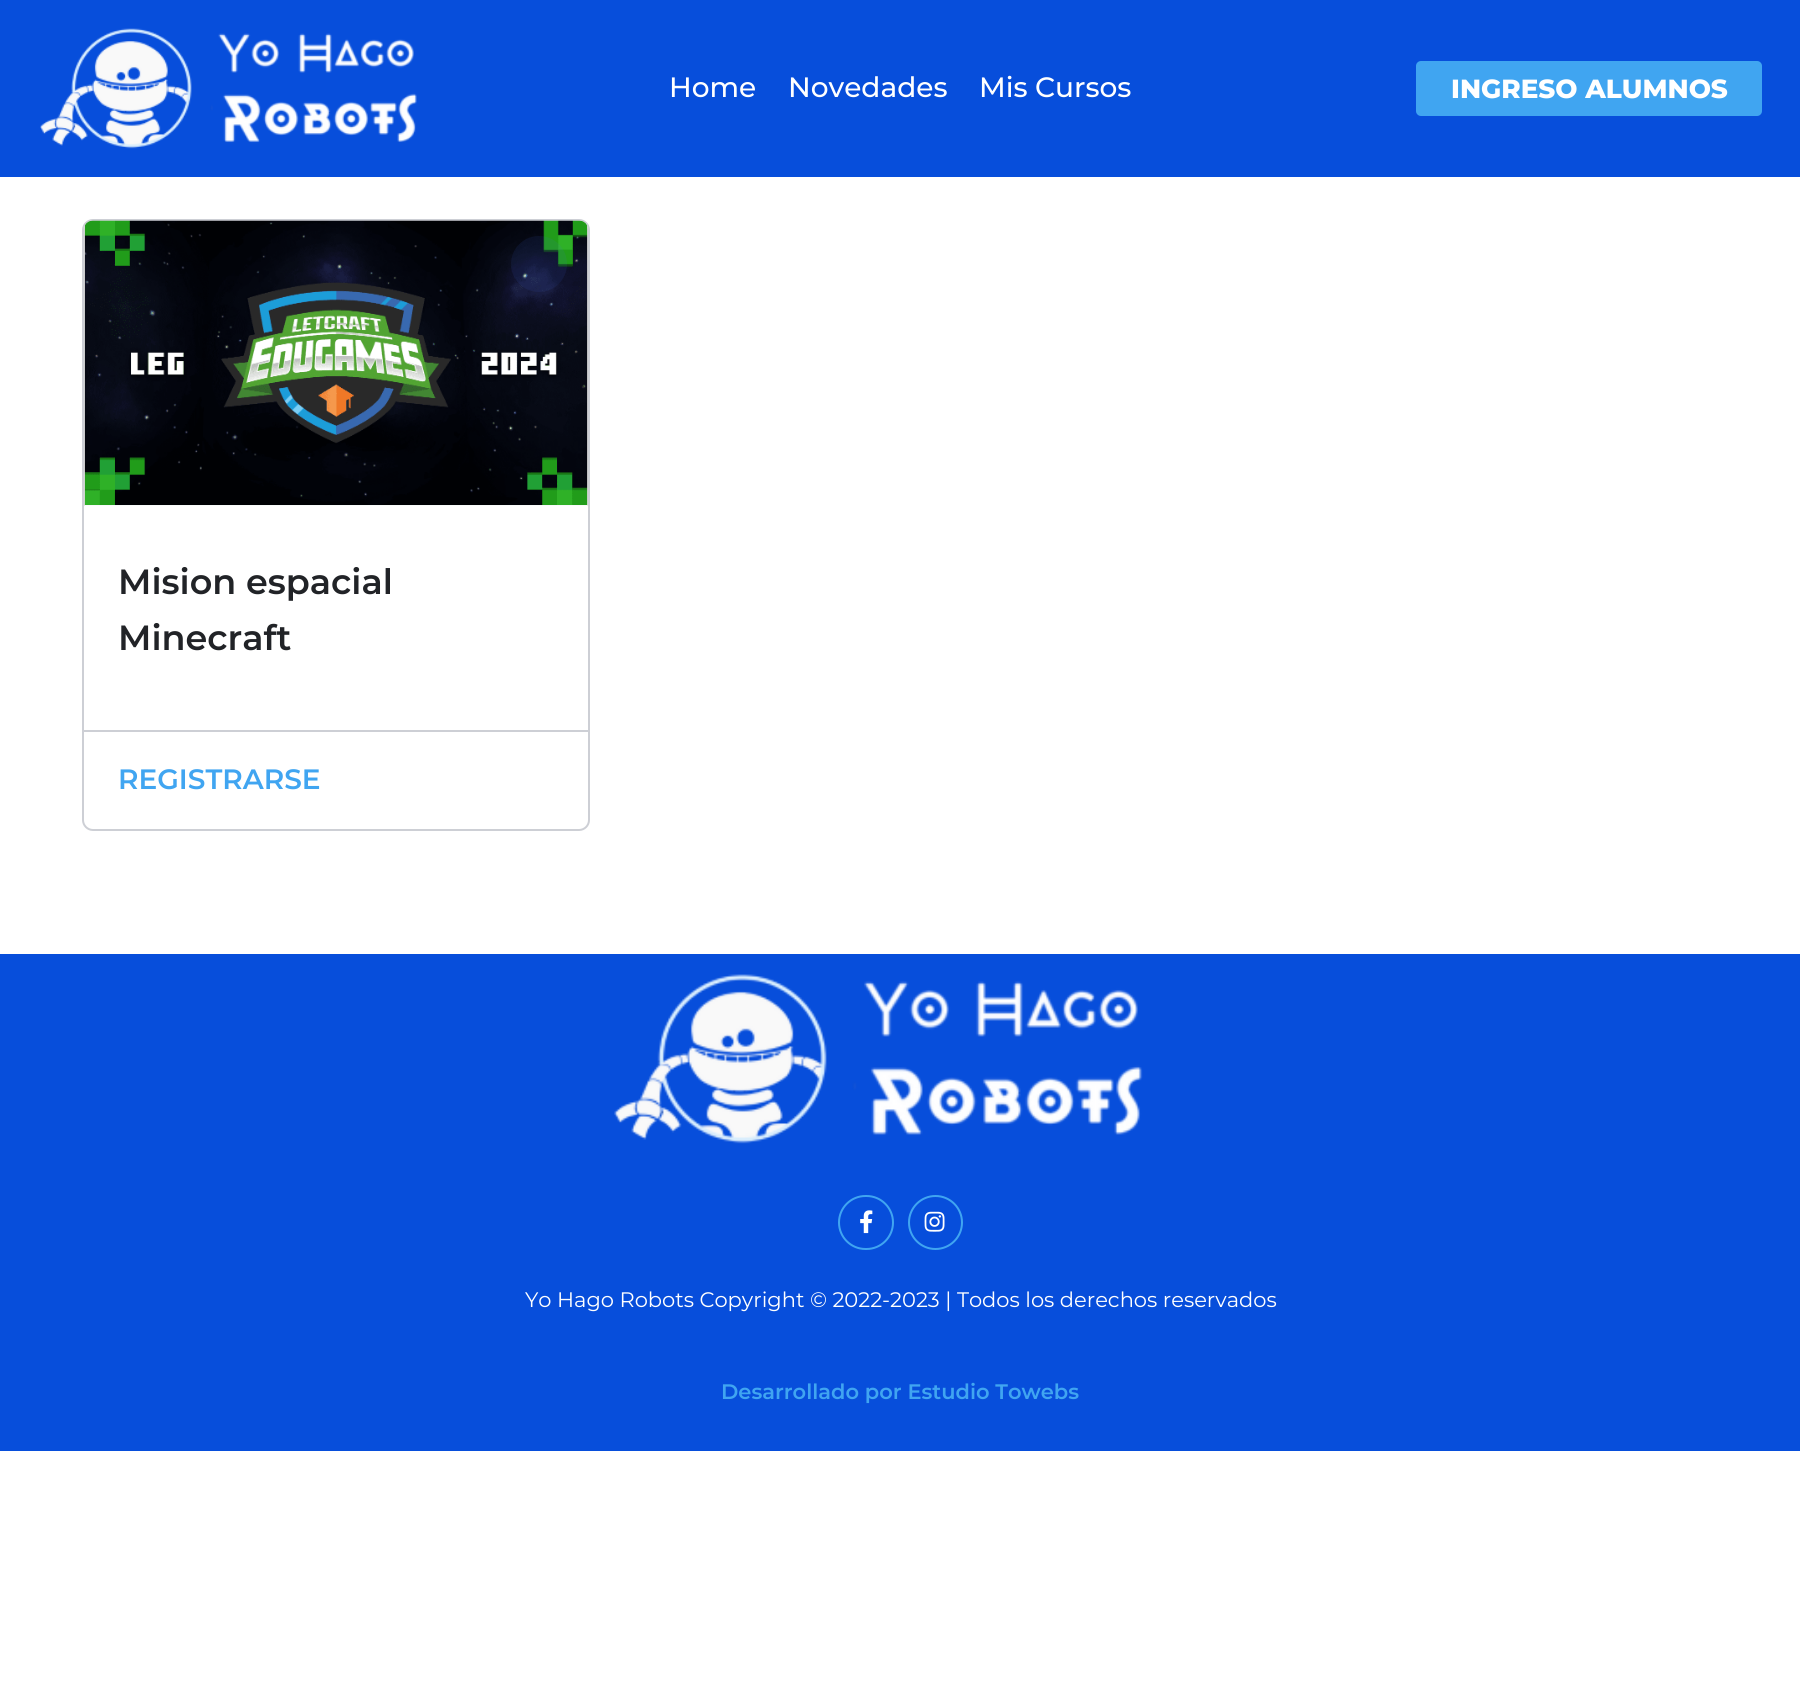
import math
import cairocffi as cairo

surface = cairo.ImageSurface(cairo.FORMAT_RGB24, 1800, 1690)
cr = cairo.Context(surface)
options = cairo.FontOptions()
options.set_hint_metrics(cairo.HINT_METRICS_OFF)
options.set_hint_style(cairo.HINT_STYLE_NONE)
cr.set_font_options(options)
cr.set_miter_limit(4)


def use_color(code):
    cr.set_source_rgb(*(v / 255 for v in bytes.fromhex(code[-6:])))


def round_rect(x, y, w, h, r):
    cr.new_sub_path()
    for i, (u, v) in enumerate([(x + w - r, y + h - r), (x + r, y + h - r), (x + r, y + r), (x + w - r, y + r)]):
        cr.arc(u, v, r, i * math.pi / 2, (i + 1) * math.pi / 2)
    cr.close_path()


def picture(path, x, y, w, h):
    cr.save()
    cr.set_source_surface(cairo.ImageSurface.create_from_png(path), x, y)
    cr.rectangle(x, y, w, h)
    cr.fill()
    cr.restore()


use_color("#ffffff")
cr.paint()
use_color("#074edb")
cr.rectangle(0, 0, 1800, 177)
cr.fill()
picture("img1.png", 40, 28, 377, 121)
cr.select_font_face("Montserrat Medium")
cr.set_font_size(28)
use_color("#ffffff")
cr.move_to(669, 97)
cr.show_text("Home")
cr.move_to(788, 97)
cr.show_text("Novedades")
cr.move_to(979, 97)
cr.show_text("Mis Cursos")
use_color("#40a5f1")
round_rect(1416, 61, 346, 55, 5)
cr.fill()
cr.select_font_face("Montserrat ExtraBold")
cr.set_font_size(26.25)
use_color("#ffffff")
cr.move_to(1451, 98)
cr.show_text("INGRESO ALUMNOS")
round_rect(83, 220, 506, 610, 10)
use_color("#cdcfd5")
cr.stroke()
picture("img2.png", 84, 220, 504, 286)
cr.set_source_rgba(0.243, 0.392, 0.871, 0.1)
cr.arc(539, 264, 28, 0, 2 * math.pi)
cr.fill()
cr.select_font_face("Montserrat SemiBold")
cr.set_font_size(35)
use_color("#212327")
cr.move_to(118, 594)
cr.show_text("Mision espacial")
cr.move_to(118, 650)
cr.show_text("Minecraft")
use_color("#cdcfd5")
cr.rectangle(84, 730, 504, 2)
cr.fill()
cr.set_font_size(28)
use_color("#40a5f1")
cr.move_to(118, 789)
cr.show_text("REGISTRARSE")
use_color("#074edb")
cr.rectangle(0, 954, 1800, 497)
cr.fill()
picture("img3.png", 614, 974, 529, 170)
round_rect(839, 1196, 54, 53, 26.5)
use_color("#40a5f1")
cr.stroke()
picture("img4.png", 860, 1210, 13, 24)
cr.arc(935.5, 1222.5, 26.5, 0, 2 * math.pi)
cr.stroke()
picture("img5.png", 924, 1211, 21, 21)
cr.select_font_face("Montserrat")
cr.set_font_size(21)
use_color("#ffffff")
cr.move_to(525, 1307)
cr.show_text("Yo Hago Robots Copyright © 2022-2023 | Todos los derechos reservados")
cr.select_font_face("Montserrat SemiBold")
use_color("#40a5f1")
cr.move_to(721, 1399)
cr.show_text("Desarrollado por Estudio Towebs")
surface.write_to_png("result.png")
